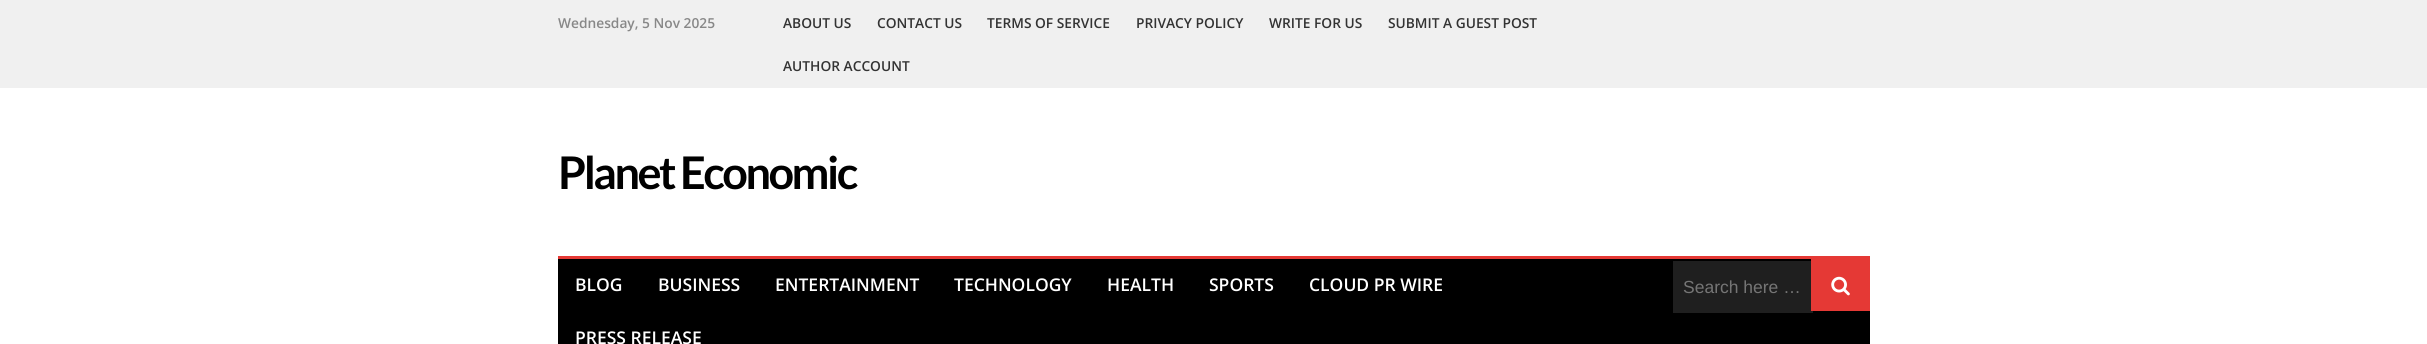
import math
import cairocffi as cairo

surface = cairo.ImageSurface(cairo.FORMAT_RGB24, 2427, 344)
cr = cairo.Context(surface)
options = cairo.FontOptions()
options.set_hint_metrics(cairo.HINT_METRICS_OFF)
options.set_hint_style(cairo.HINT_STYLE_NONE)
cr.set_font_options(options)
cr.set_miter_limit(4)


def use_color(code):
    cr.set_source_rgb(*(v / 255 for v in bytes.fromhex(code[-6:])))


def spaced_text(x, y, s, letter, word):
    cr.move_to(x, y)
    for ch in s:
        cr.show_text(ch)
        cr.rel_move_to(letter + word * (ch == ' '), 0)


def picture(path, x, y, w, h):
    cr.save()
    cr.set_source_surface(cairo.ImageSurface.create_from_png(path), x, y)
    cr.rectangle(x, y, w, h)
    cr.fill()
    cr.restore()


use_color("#ffffff")
cr.paint()
use_color("#f0f0f0")
cr.rectangle(0, 0, 2427, 88)
cr.fill()
cr.select_font_face("Open Sans SemiBold")
cr.set_font_size(13.75)
use_color("#888888")
cr.move_to(558, 28)
cr.show_text("Wednesday, 5 Nov 2025")
use_color("#333333")
cr.move_to(783, 28)
cr.show_text("ABOUT US")
cr.move_to(877, 28)
cr.show_text("CONTACT US")
cr.move_to(987, 28)
cr.show_text("TERMS OF SERVICE")
cr.move_to(1136, 28)
cr.show_text("PRIVACY POLICY")
cr.move_to(1269, 28)
cr.show_text("WRITE FOR US")
cr.move_to(1388, 28)
cr.show_text("SUBMIT A GUEST POST")
cr.move_to(783, 71)
cr.show_text("AUTHOR ACCOUNT")
cr.select_font_face("Lato", cairo.FONT_SLANT_NORMAL, cairo.FONT_WEIGHT_BOLD)
cr.set_font_size(45)
use_color("#000000")
spaced_text(558, 189, "Planet Economic", -2.5, 0)
cr.rectangle(558, 259, 1312, 85)
cr.fill()
use_color("#e53935")
cr.rectangle(558, 256, 1312, 3)
cr.fill()
cr.select_font_face("Open Sans SemiBold")
cr.set_font_size(17.5)
use_color("#ffffff")
cr.move_to(575, 291)
cr.show_text("BLOG")
cr.move_to(658, 291)
cr.show_text("BUSINESS")
cr.move_to(775, 291)
cr.show_text("ENTERTAINMENT")
cr.move_to(954, 291)
cr.show_text("TECHNOLOGY")
cr.move_to(1107, 291)
cr.show_text("HEALTH")
cr.move_to(1209, 291)
cr.show_text("SPORTS")
cr.move_to(1309, 291)
cr.show_text("CLOUD PR WIRE")
cr.move_to(575, 344)
cr.show_text("PRESS RELEASE")
use_color("#1f1f1f")
cr.rectangle(1673, 261, 140, 52)
cr.fill()
cr.select_font_face("Liberation Sans")
use_color("#757575")
cr.move_to(1683, 293)
cr.show_text("Search here …")
use_color("#e53935")
cr.rectangle(1811, 259, 59, 52)
cr.fill()
picture("img1.png", 1831, 276, 19, 20)
surface.write_to_png("result.png")
